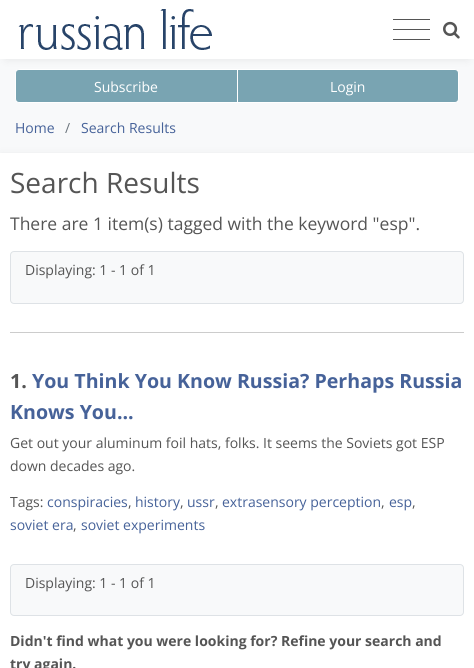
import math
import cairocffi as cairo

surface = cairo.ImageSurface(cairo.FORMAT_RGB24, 474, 668)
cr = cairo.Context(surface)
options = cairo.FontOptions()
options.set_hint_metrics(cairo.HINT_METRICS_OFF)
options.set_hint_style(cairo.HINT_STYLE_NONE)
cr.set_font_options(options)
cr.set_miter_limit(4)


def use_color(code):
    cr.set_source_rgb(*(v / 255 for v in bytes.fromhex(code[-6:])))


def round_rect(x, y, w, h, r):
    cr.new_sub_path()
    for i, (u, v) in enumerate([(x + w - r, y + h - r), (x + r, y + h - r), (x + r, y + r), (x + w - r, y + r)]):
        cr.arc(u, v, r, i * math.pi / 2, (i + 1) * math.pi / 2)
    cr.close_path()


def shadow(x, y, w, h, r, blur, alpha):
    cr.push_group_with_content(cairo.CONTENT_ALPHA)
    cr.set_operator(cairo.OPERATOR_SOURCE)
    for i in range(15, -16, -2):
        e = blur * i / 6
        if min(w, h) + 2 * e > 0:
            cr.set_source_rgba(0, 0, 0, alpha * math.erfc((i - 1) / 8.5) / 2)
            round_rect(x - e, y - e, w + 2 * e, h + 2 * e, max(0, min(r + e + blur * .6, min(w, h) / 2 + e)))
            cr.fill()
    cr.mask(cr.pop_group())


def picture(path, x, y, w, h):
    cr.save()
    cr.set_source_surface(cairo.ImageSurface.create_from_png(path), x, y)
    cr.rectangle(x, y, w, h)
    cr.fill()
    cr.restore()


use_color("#f8f9fa")
cr.paint()
use_color("#79a4b2")
cr.new_path()
cr.move_to(19, 69.5)
cr.line_to(237.5, 69.5)
cr.line_to(237.5, 102.5)
cr.line_to(19, 102.5)
cr.curve_to(17, 102.5, 15.5, 101, 15.5, 99)
cr.line_to(15.5, 73)
cr.curve_to(15.5, 71, 17, 69.5, 19, 69.5)
cr.close_path()
cr.fill_preserve()
use_color("#ffffff")
cr.set_line_width(1)
cr.stroke()
use_color("#79a4b2")
cr.new_path()
cr.move_to(237.5, 69.5)
cr.line_to(455, 69.5)
cr.curve_to(457, 69.5, 458.5, 71, 458.5, 73)
cr.line_to(458.5, 99)
cr.curve_to(458.5, 101, 457, 102.5, 455, 102.5)
cr.line_to(237.5, 102.5)
cr.close_path()
cr.fill_preserve()
use_color("#ffffff")
cr.stroke()
use_color("#000000")
shadow(6, 11, 462, 47, 0, 5, 0.1)
use_color("#ffffff")
cr.rectangle(0, 0, 474, 59)
cr.fill()
picture("img1.png", 18, 9, 194, 41)
use_color("#555555")
cr.rectangle(393, 19, 37, 1)
cr.fill()
cr.rectangle(393, 29, 37, 1)
cr.fill()
cr.rectangle(393, 39, 37, 1)
cr.fill()
picture("img2.png", 443, 21, 17, 18)
cr.select_font_face("Open Sans")
cr.set_font_size(14)
use_color("#ffffff")
cr.move_to(94, 92)
cr.show_text("Subscribe")
cr.move_to(330, 92)
cr.show_text("Login")
use_color("#466299")
cr.move_to(15, 133)
cr.show_text("Home")
use_color("#6c757d")
cr.move_to(65, 133)
cr.show_text("/")
use_color("#466299")
cr.move_to(81, 133)
cr.show_text("Search Results")
use_color("#000000")
shadow(0, 160, 474, 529, 0, 7, 0.15)
use_color("#ffffff")
cr.rectangle(0, 153, 474, 515)
cr.fill()
cr.set_font_size(28)
use_color("#555555")
cr.move_to(10, 193)
cr.show_text("Search Results")
cr.set_font_size(17.5)
cr.move_to(10, 230)
cr.show_text("There are 1 item(s) tagged with the keyword \"esp\".")
use_color("#f8f9fa")
round_rect(10.5, 251.5, 453, 52, 3.5)
cr.fill_preserve()
use_color("#dee2e6")
cr.stroke()
cr.set_font_size(14)
use_color("#555555")
cr.move_to(25, 275)
cr.show_text("Displaying: 1 - 1 of 1")
use_color("#cccccc")
cr.rectangle(10, 332, 454, 1)
cr.fill()
cr.select_font_face("Open Sans", cairo.FONT_SLANT_NORMAL, cairo.FONT_WEIGHT_BOLD)
cr.set_font_size(19.6)
use_color("#555555")
cr.move_to(10, 388)
cr.show_text("1.")
use_color("#466299")
cr.move_to(32, 388)
cr.show_text("You Think You Know Russia? Perhaps Russia")
cr.move_to(10, 419)
cr.show_text("Knows You...")
cr.select_font_face("Open Sans")
cr.set_font_size(14)
use_color("#555555")
cr.move_to(10, 448)
cr.show_text("Get out your aluminum foil hats, folks. It seems the Soviets got ESP")
cr.move_to(10, 471)
cr.show_text("down decades ago.")
cr.move_to(10, 507)
cr.show_text("Tags:")
use_color("#466299")
cr.move_to(47, 507)
cr.show_text("conspiracies")
use_color("#555555")
cr.move_to(128, 507)
cr.show_text(",")
use_color("#466299")
cr.move_to(135, 507)
cr.show_text("history")
use_color("#555555")
cr.move_to(180, 507)
cr.show_text(",")
use_color("#466299")
cr.move_to(187, 507)
cr.show_text("ussr")
use_color("#555555")
cr.move_to(215, 507)
cr.show_text(",")
use_color("#466299")
cr.move_to(222, 507)
cr.show_text("extrasensory perception")
use_color("#555555")
cr.move_to(381, 507)
cr.show_text(",")
use_color("#466299")
cr.move_to(389, 507)
cr.show_text("esp")
use_color("#555555")
cr.move_to(412, 507)
cr.show_text(",")
use_color("#466299")
cr.move_to(10, 530)
cr.show_text("soviet era")
use_color("#555555")
cr.move_to(73, 530)
cr.show_text(",")
use_color("#466299")
cr.move_to(81, 530)
cr.show_text("soviet experiments")
use_color("#f8f9fa")
round_rect(10.5, 564.5, 453, 51, 3.5)
cr.fill_preserve()
use_color("#dee2e6")
cr.stroke()
use_color("#555555")
cr.move_to(25, 588)
cr.show_text("Displaying: 1 - 1 of 1")
cr.select_font_face("Open Sans", cairo.FONT_SLANT_NORMAL, cairo.FONT_WEIGHT_BOLD)
cr.move_to(10, 646)
cr.show_text("Didn't find what you were looking for? Refine your search and")
cr.move_to(10, 669)
cr.show_text("try again.")
surface.write_to_png("result.png")
